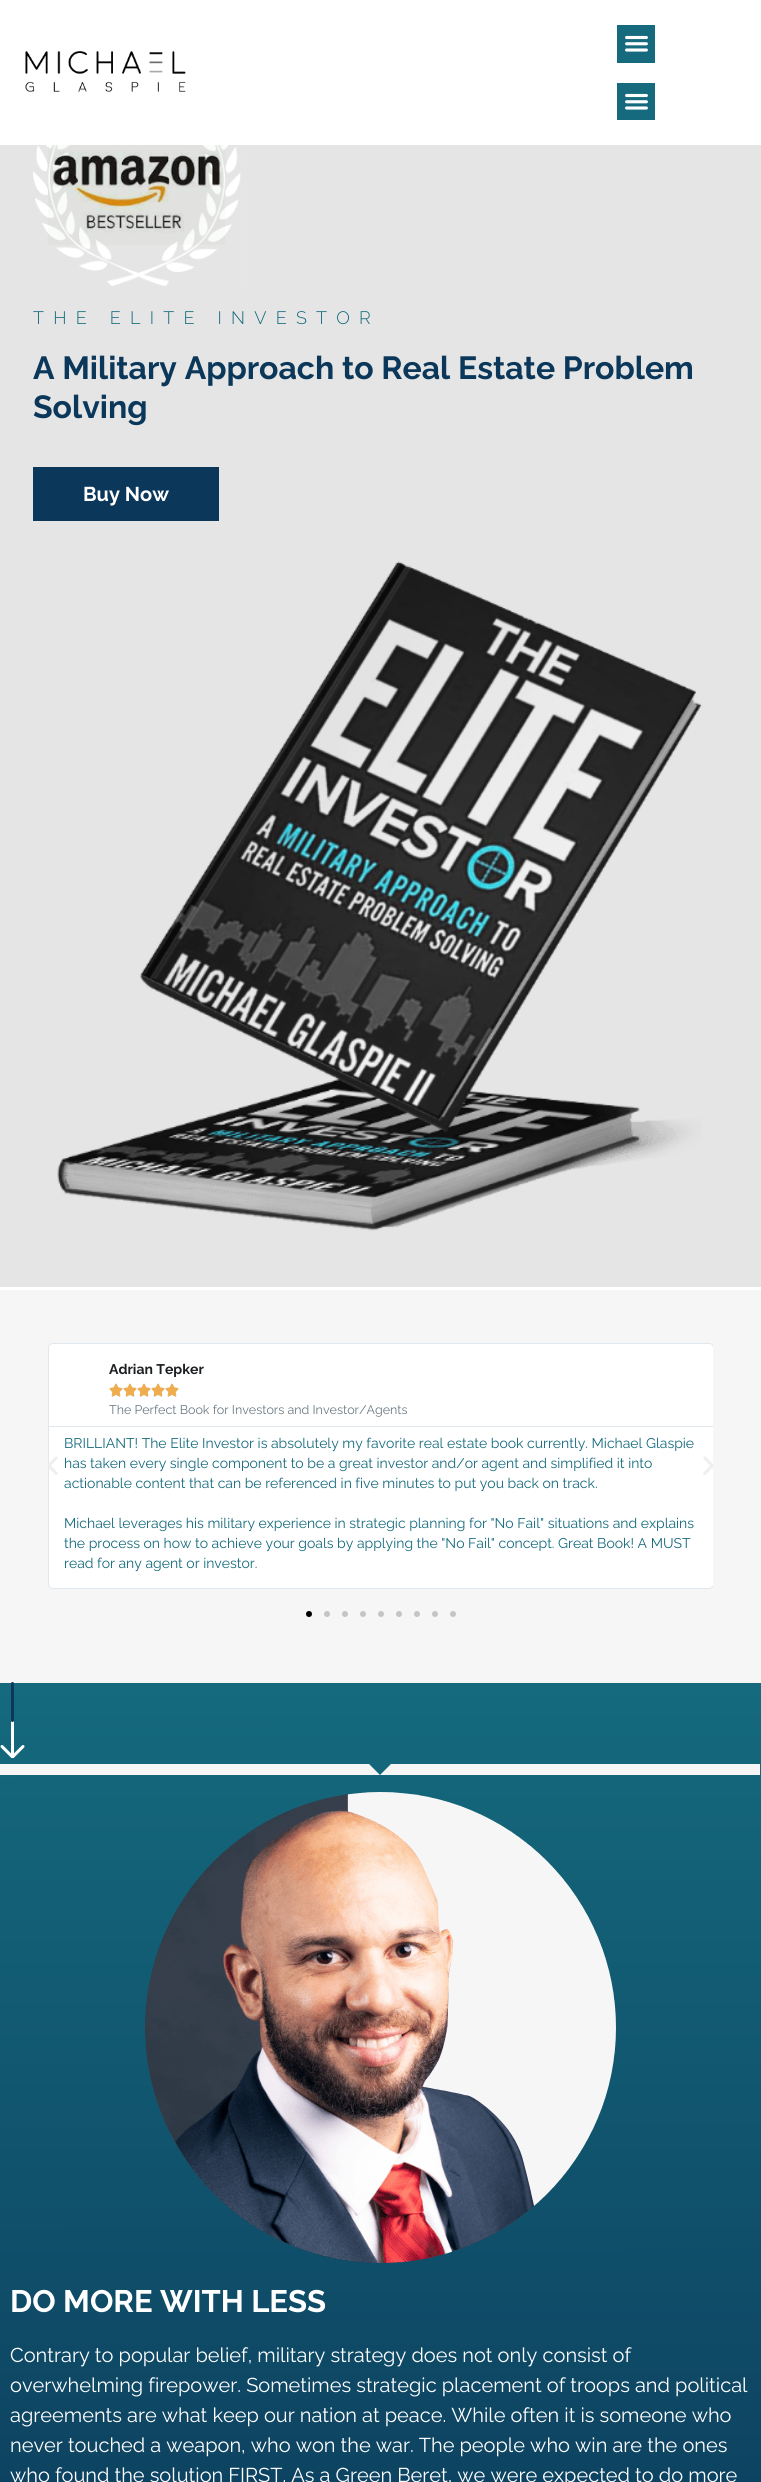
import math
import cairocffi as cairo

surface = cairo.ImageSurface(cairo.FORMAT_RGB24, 761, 2482)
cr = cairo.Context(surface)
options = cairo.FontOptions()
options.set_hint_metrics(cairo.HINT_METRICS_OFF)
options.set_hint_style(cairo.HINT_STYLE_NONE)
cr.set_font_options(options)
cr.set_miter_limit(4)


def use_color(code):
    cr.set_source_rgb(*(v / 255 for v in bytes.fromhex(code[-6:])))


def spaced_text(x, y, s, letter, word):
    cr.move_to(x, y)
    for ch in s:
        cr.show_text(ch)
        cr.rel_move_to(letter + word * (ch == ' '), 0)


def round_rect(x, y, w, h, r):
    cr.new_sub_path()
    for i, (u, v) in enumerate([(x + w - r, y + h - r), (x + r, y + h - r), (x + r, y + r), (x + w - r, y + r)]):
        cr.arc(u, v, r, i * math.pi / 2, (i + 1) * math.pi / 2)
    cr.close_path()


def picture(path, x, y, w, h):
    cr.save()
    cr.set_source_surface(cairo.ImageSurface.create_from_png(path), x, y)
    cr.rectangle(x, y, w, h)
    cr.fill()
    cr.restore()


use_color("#ffffff")
cr.paint()
picture("img1.png", 25, 51, 161, 41)
use_color("#156a7d")
cr.rectangle(617, 25, 38, 38)
cr.fill()
picture("img2.png", 625, 35, 23, 17)
cr.rectangle(617, 83, 38, 37)
cr.fill()
picture("img2.png", 625, 93, 23, 17)
use_color("#e5e5e5")
cr.rectangle(0, 145, 761, 1142)
cr.fill()
picture("img3.png", 33, 145, 208, 141)
cr.select_font_face("Raleway Light")
cr.set_font_size(18)
use_color("#156a7d")
spaced_text(33, 324, "THE ELITE INVESTOR", 9.25, 0)
cr.select_font_face("Raleway", cairo.FONT_SLANT_NORMAL, cairo.FONT_WEIGHT_BOLD)
cr.set_font_size(32)
use_color("#0b385a")
cr.move_to(33, 379)
cr.show_text("A Military Approach to Real Estate Problem")
cr.move_to(33, 418)
cr.show_text("Solving")
cr.rectangle(33, 467, 186, 54)
cr.fill()
cr.set_font_size(20)
use_color("#ffffff")
cr.move_to(83, 501)
cr.show_text("Buy Now")
picture("img4.png", 57, 561, 645, 670)
use_color("#f6f6f6")
cr.rectangle(0, 1290, 761, 393)
cr.fill()
cr.save()
cr.rectangle(48, 1343, 665, 286)
cr.clip()
use_color("#ffffff")
round_rect(48.5, 1343.5, 665, 245, 4.5)
cr.fill_preserve()
use_color("#e1e8ed")
cr.set_line_width(1)
cr.stroke()
cr.restore()
picture("img5.png", 47, 1456, 11, 19)
use_color("#e1e8ed")
cr.rectangle(49, 1426, 664, 1)
cr.fill()
cr.set_font_size(14)
use_color("#1c2022")
cr.move_to(109, 1374)
cr.show_text("Adrian Tepker")
picture("img6.png", 109, 1383, 14, 14)
picture("img7.png", 109, 1383, 14, 14)
picture("img6.png", 123, 1383, 14, 14)
picture("img7.png", 123, 1383, 14, 14)
picture("img6.png", 137, 1383, 14, 14)
picture("img7.png", 137, 1383, 14, 14)
picture("img6.png", 151, 1383, 14, 14)
picture("img7.png", 151, 1383, 14, 14)
picture("img6.png", 165, 1383, 14, 14)
picture("img7.png", 165, 1383, 14, 14)
cr.select_font_face("Raleway")
cr.set_font_size(12.5)
use_color("#697882")
cr.move_to(109, 1414)
cr.show_text("The Perfect Book for Investors and Investor/Agents")
cr.set_font_size(14)
use_color("#156a7d")
cr.move_to(64, 1448)
cr.show_text("BRILLIANT! The Elite Investor is absolutely my favorite real estate book currently. Michael Glaspie")
cr.move_to(64, 1468)
cr.show_text("has taken every single component to be a great investor and/or agent and simplified it into")
cr.move_to(64, 1488)
cr.show_text("actionable content that can be referenced in five minutes to put you back on track.")
cr.move_to(64, 1528)
cr.show_text("Michael leverages his military experience in strategic planning for \"No Fail\" situations and explains")
cr.move_to(64, 1548)
cr.show_text("the process on how to achieve your goals by applying the \"No Fail\" concept. Great Book! A MUST")
cr.move_to(64, 1568)
cr.show_text("read for any agent or investor.")
picture("img8.png", 703, 1456, 11, 19)
use_color("#000000")
cr.arc(309, 1614, 3, 0, 2 * math.pi)
cr.fill()
use_color("#c5c5c5")
cr.arc(327, 1614, 3, 0, 2 * math.pi)
cr.fill()
cr.arc(345, 1614, 3, 0, 2 * math.pi)
cr.fill()
cr.arc(363, 1614, 3, 0, 2 * math.pi)
cr.fill()
cr.arc(381, 1614, 3, 0, 2 * math.pi)
cr.fill()
cr.arc(399, 1614, 3, 0, 2 * math.pi)
cr.fill()
cr.arc(417, 1614, 3, 0, 2 * math.pi)
cr.fill()
cr.arc(435, 1614, 3, 0, 2 * math.pi)
cr.fill()
cr.arc(453, 1614, 3, 0, 2 * math.pi)
cr.fill()
gradient = cairo.LinearGradient(381, 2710, 380, 1683)
gradient.add_color_stop_rgba(0, 0.043, 0.22, 0.353, 1)
gradient.add_color_stop_rgba(1, 0.082, 0.416, 0.49, 1)
cr.set_source(gradient)
cr.rectangle(0, 1683, 761, 799)
cr.fill()
cr.save()
cr.rectangle(0, 1682, 25, 76)
cr.clip()
cr.new_path()
cr.move_to(12.5, 1683.5)
cr.line_to(12.5, 1757)
use_color("#ffffff")
cr.set_line_width(3)
cr.set_line_cap(cairo.LINE_CAP_ROUND)
cr.set_line_join(cairo.LINE_JOIN_ROUND)
cr.stroke()
cr.new_path()
cr.move_to(23, 1746.5)
cr.line_to(12.5, 1757)
cr.line_to(2, 1746.5)
cr.stroke()
cr.restore()
cr.new_path()
cr.move_to(12.5, 1683.5)
cr.line_to(12.5, 1720.5)
use_color("#0b385a")
cr.set_line_width(3)
cr.set_line_cap(cairo.LINE_CAP_ROUND)
cr.set_line_join(cairo.LINE_JOIN_ROUND)
cr.stroke()
use_color("#f6f6f6")
cr.new_path()
cr.move_to(391, 1764)
cr.line_to(380, 1775)
cr.line_to(369, 1764)
cr.line_to(0, 1764)
cr.line_to(0, 1775)
cr.line_to(760, 1775)
cr.line_to(760, 1764)
cr.fill()
picture("img9.png", 145, 1792, 471, 471)
cr.select_font_face("Raleway", cairo.FONT_SLANT_NORMAL, cairo.FONT_WEIGHT_BOLD)
cr.set_font_size(31)
use_color("#ffffff")
cr.move_to(10, 2312)
cr.show_text("DO MORE WITH LESS")
cr.select_font_face("Raleway")
cr.set_font_size(20)
cr.move_to(10, 2362)
cr.show_text("Contrary to popular belief, military strategy does not only consist of")
cr.move_to(10, 2392)
cr.show_text("overwhelming firepower. Sometimes strategic placement of troops and political")
cr.move_to(10, 2422)
cr.show_text("agreements are what keep our nation at peace. While often it is someone who")
cr.move_to(10, 2452)
cr.show_text("never touched a weapon, who won the war. The people who win are the ones")
cr.move_to(10, 2482)
cr.show_text("who found the solution FIRST. As a Green Beret, we were expected to do more")
surface.write_to_png("result.png")
